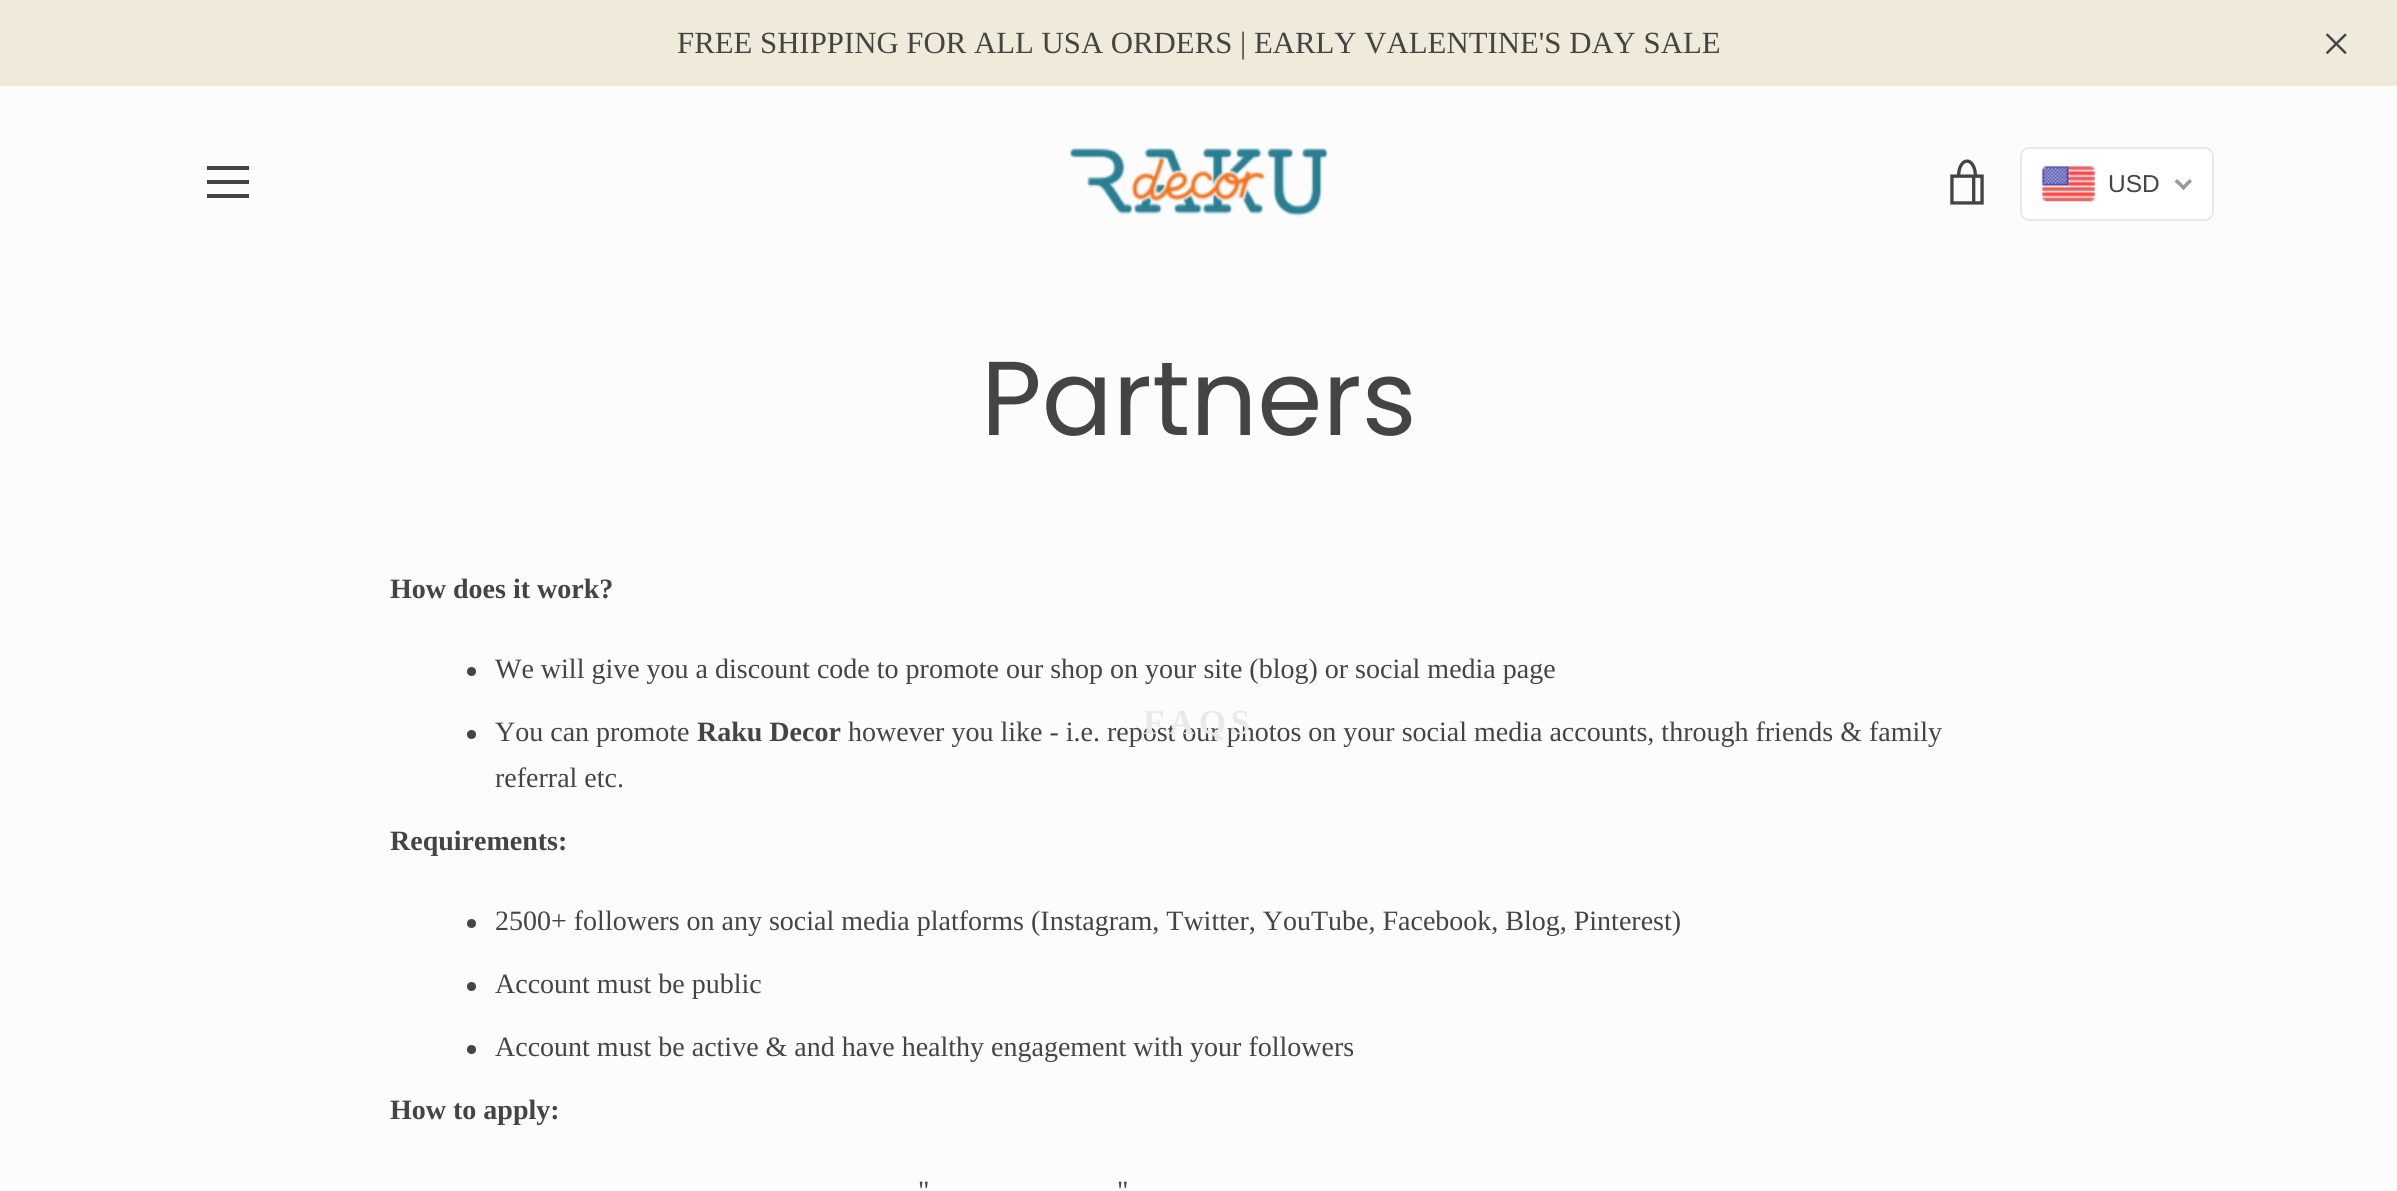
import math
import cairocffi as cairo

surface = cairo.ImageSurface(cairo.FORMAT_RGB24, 2397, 1191)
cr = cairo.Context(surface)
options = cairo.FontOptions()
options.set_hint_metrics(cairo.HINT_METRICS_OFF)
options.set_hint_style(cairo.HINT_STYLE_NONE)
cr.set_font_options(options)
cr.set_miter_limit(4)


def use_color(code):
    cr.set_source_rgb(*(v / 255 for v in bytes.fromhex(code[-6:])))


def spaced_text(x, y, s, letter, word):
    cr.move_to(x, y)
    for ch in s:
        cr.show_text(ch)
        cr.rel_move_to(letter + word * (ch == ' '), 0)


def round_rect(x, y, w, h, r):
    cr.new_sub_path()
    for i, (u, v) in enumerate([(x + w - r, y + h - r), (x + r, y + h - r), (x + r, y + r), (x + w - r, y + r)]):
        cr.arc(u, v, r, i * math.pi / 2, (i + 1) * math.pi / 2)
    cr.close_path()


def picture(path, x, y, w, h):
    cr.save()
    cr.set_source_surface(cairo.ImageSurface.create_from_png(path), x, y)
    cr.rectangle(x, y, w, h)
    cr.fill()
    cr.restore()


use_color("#fcfcfc")
cr.paint()
use_color("#f0eadb")
cr.rectangle(0, 0, 2397, 86)
cr.fill()
cr.select_font_face("Liberation Serif")
cr.set_font_size(30.8)
use_color("#444442")
cr.move_to(677, 53)
cr.show_text("FREE SHIPPING FOR ALL USA ORDERS | EARLY VALENTINE'S DAY SALE")
picture("img1.png", 2326, 33, 21, 21)
picture("img2.png", 1070, 148, 259, 69)
picture("img3.png", 1950, 159, 34, 46)
use_color("#ffffff")
round_rect(2021, 148, 192, 72, 8)
cr.fill_preserve()
use_color("#e8e8e8")
cr.stroke()
picture("img4.png", 2041, 165, 54, 37)
cr.select_font_face("Liberation Sans")
cr.set_font_size(24.5)
use_color("#444442")
cr.move_to(2108, 192)
cr.show_text("USD")
use_color("#999999")
cr.new_path()
cr.move_to(2189.5, 179)
cr.line_to(2192, 181.5)
cr.line_to(2183.5, 190)
cr.line_to(2181, 187.5)
cr.close_path()
cr.fill()
cr.new_path()
cr.move_to(2177, 179)
cr.line_to(2186, 187.5)
cr.line_to(2183.5, 190)
cr.line_to(2174.5, 181.5)
cr.close_path()
cr.fill()
use_color("#444442")
cr.rectangle(207, 166, 42, 4)
cr.fill()
cr.rectangle(207, 180, 42, 4)
cr.fill()
cr.rectangle(207, 194, 42, 4)
cr.fill()
cr.select_font_face("Liberation Serif")
cr.set_font_size(28)
cr.move_to(848, 741)
cr.show_text("however you like - i.e. repost our photos on your social media accounts, through friends & family")
cr.select_font_face("Liberation Serif", cairo.FONT_SLANT_NORMAL, cairo.FONT_WEIGHT_BOLD)
cr.set_font_size(35)
use_color("#e9e9e8")
spaced_text(1143, 734, "FAQS", 4.5, 0)
cr.select_font_face("Poppins")
cr.set_font_size(105)
use_color("#444442")
cr.move_to(981, 435)
cr.show_text("Partners")
cr.select_font_face("Liberation Serif", cairo.FONT_SLANT_NORMAL, cairo.FONT_WEIGHT_BOLD)
cr.set_font_size(28)
cr.move_to(390, 598)
cr.show_text("How does it work?")
cr.new_path()
cr.arc(471.5, 671.5, 4.5, 0, 2 * math.pi)
cr.fill()
cr.select_font_face("Liberation Serif")
cr.move_to(495, 678)
cr.show_text("We will give you a discount code to promote our shop on your site (blog) or social media page")
cr.new_path()
cr.arc(471.5, 734.5, 4.5, 0, 2 * math.pi)
cr.fill()
cr.move_to(495, 741)
cr.show_text("You can promote")
cr.select_font_face("Liberation Serif", cairo.FONT_SLANT_NORMAL, cairo.FONT_WEIGHT_BOLD)
cr.move_to(697, 741)
cr.show_text("Raku Decor")
cr.select_font_face("Liberation Serif")
cr.move_to(495, 787)
cr.show_text("referral etc.")
cr.select_font_face("Liberation Serif", cairo.FONT_SLANT_NORMAL, cairo.FONT_WEIGHT_BOLD)
cr.move_to(390, 850)
cr.show_text("Requirements:")
cr.new_path()
cr.arc(471.5, 923.5, 4.5, 0, 2 * math.pi)
cr.fill()
cr.select_font_face("Liberation Serif")
cr.move_to(495, 930)
cr.show_text("2500+ followers on any social media platforms (Instagram, Twitter, YouTube, Facebook, Blog, Pinterest)")
cr.new_path()
cr.arc(471.5, 986.5, 4.5, 0, 2 * math.pi)
cr.fill()
cr.move_to(495, 993)
cr.show_text("Account must be public")
cr.new_path()
cr.arc(471.5, 1049.5, 4.5, 0, 2 * math.pi)
cr.fill()
cr.move_to(495, 1056)
cr.show_text("Account must be active & and have healthy engagement with your followers")
cr.select_font_face("Liberation Serif", cairo.FONT_SLANT_NORMAL, cairo.FONT_WEIGHT_BOLD)
cr.move_to(390, 1119)
cr.show_text("How to apply:")
cr.select_font_face("Liberation Serif")
cr.move_to(918, 1200)
cr.show_text("\"")
cr.move_to(1117, 1200)
cr.show_text("\"")
surface.write_to_png("result.png")
